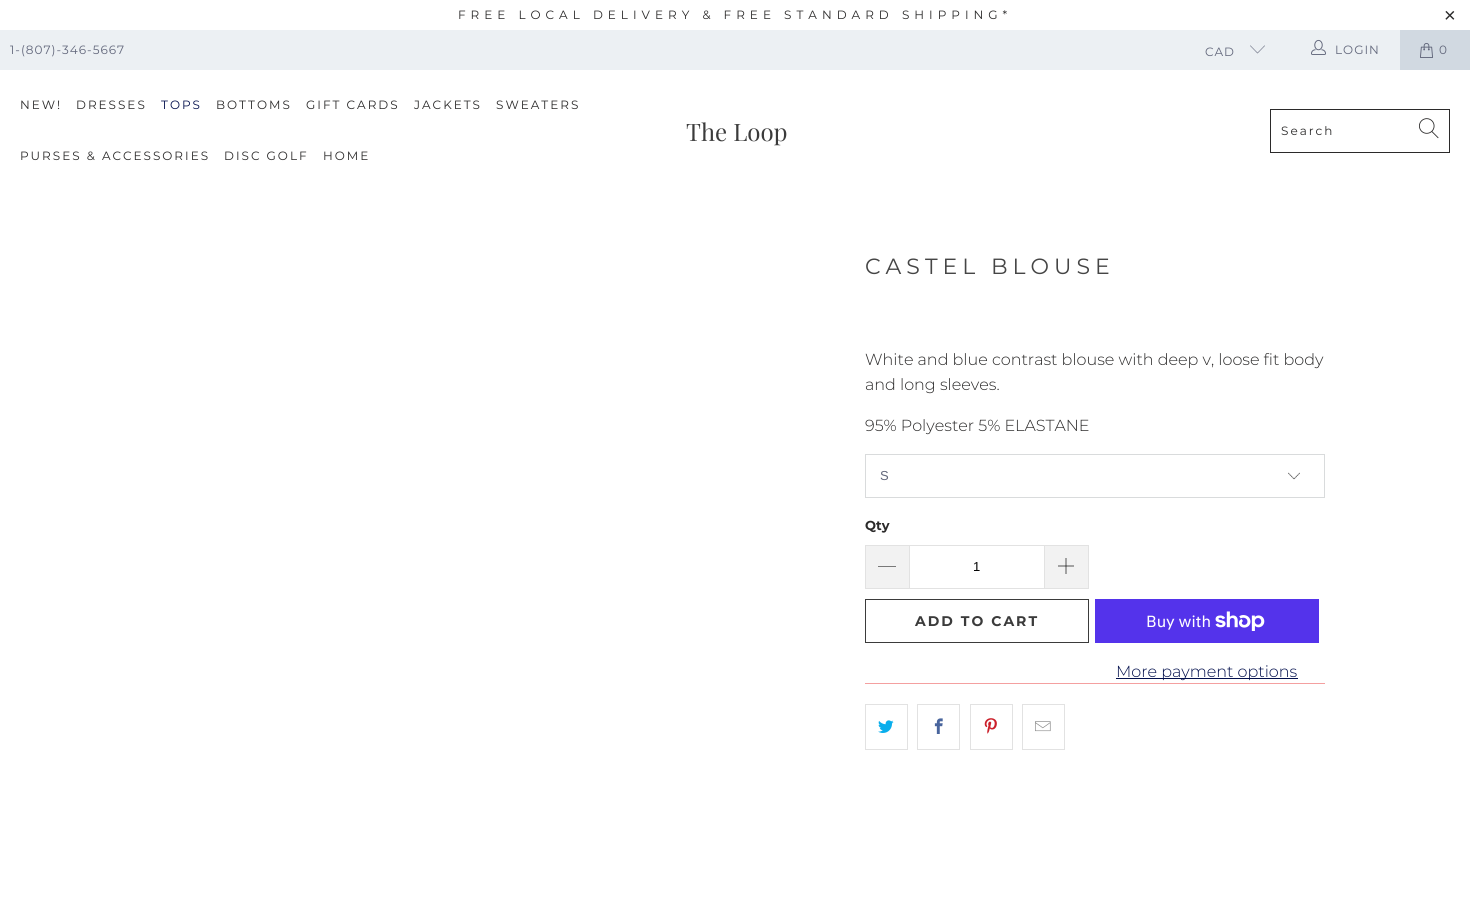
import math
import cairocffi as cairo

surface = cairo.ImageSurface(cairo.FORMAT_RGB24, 1470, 905)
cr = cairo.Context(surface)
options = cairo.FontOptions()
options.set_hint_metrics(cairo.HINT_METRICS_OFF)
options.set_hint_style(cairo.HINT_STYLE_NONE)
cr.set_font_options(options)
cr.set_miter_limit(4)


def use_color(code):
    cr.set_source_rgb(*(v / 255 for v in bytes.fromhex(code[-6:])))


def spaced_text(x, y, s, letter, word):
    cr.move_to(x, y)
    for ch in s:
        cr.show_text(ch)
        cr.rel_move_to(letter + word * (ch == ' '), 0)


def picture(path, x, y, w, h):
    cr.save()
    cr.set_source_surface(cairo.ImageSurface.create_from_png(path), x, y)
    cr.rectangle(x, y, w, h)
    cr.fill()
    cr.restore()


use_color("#ffffff")
cr.paint()
cr.select_font_face("Montserrat")
cr.set_font_size(12)
use_color("#2b2a2a")
spaced_text(458, 19, "FREE LOCAL DELIVERY & FREE STANDARD SHIPPING*", 5, 0)
cr.select_font_face("Liberation Sans")
cr.set_font_size(20)
spaced_text(1444, 22, "×", 5, 0)
use_color("#ecf0f3")
cr.rectangle(0, 30, 1400, 40)
cr.fill()
cr.select_font_face("Montserrat")
cr.set_font_size(12)
use_color("#62677b")
spaced_text(10, 54, "1-(807)-346-5667", 1, 0)
spaced_text(1205, 56, "CAD", 1, 0)
picture("img1.png", 1250, 45, 15, 9)
picture("img2.png", 1311, 39, 15, 16)
spaced_text(1335, 54, "LOGIN", 1, 0)
use_color("#d1d9e1")
cr.rectangle(1400, 30, 70, 40)
cr.fill()
picture("img3.png", 1420, 43, 13, 15)
use_color("#62677b")
spaced_text(1439, 54, "0", 1, 0)
use_color("#2b2a2a")
spaced_text(20, 109, "NEW!", 2, 0)
spaced_text(76, 109, "DRESSES", 2, 0)
use_color("#020f4c")
spaced_text(161, 109, "TOPS", 2, 0)
use_color("#2b2a2a")
spaced_text(216, 109, "BOTTOMS", 2, 0)
spaced_text(306, 109, "GIFT CARDS", 2, 0)
spaced_text(414, 109, "JACKETS", 2, 0)
spaced_text(496, 109, "SWEATERS", 2, 0)
spaced_text(20, 160, "PURSES & ACCESSORIES", 2, 0)
spaced_text(224, 160, "DISC GOLF", 2, 0)
spaced_text(323, 160, "HOME", 2, 0)
cr.select_font_face("Playfair Display")
cr.set_font_size(24)
use_color("#3b3b3b")
cr.move_to(686, 141)
cr.show_text("The Loop")
cr.rectangle(1270.5, 109.5, 179, 43)
use_color("#2b2a2a")
cr.set_line_width(1)
cr.stroke()
cr.select_font_face("Montserrat")
cr.set_font_size(12)
spaced_text(1281, 135, "Search", 2, 0)
picture("img4.png", 1419, 118, 20, 21)
cr.set_font_size(22)
use_color("#454545")
spaced_text(865, 274, "CASTEL BLOUSE", 5, 0)
cr.select_font_face("Montserrat Light")
cr.set_font_size(16)
use_color("#2b2a2a")
cr.move_to(865, 365)
cr.show_text("White and blue contrast blouse with deep v, loose fit body")
cr.move_to(865, 390)
cr.show_text("and long sleeves.")
cr.move_to(865, 431)
cr.show_text("95% Polyester 5% ELASTANE")
picture("img5.png", 1288, 472, 12, 8)
cr.rectangle(865.5, 454.5, 459, 43)
use_color("#d9dbdc")
cr.stroke()
cr.select_font_face("Liberation Sans")
cr.set_font_size(13)
use_color("#62677b")
cr.move_to(880, 480)
cr.show_text("S")
cr.select_font_face("Montserrat", cairo.FONT_SLANT_NORMAL, cairo.FONT_WEIGHT_BOLD)
use_color("#2b2a2a")
cr.move_to(865, 530)
cr.show_text("Qty")
use_color("#f2f2f2")
cr.rectangle(866, 546, 43, 42)
cr.fill()
use_color("#e2e2e2")
cr.rectangle(865, 545, 44, 1)
cr.fill()
cr.rectangle(865, 588, 44, 1)
cr.fill()
cr.rectangle(865, 545, 1, 44)
cr.fill()
use_color("#000000")
cr.new_path()
cr.move_to(878, 566)
cr.line_to(896, 566)
cr.line_to(896, 566.5)
cr.line_to(878, 566.5)
cr.close_path()
cr.fill()
cr.rectangle(909.5, 545.5, 135, 43)
use_color("#e2e2e2")
cr.stroke()
cr.select_font_face("Liberation Sans")
use_color("#000000")
cr.move_to(973, 571)
cr.show_text("1")
use_color("#f2f2f2")
cr.rectangle(1045, 546, 43, 42)
cr.fill()
use_color("#e2e2e2")
cr.rectangle(1045, 545, 44, 1)
cr.fill()
cr.rectangle(1088, 545, 1, 44)
cr.fill()
cr.rectangle(1045, 588, 44, 1)
cr.fill()
picture("img6.png", 1058, 558, 16, 16)
cr.rectangle(865.5, 599.5, 223, 43)
use_color("#3b3b3b")
cr.stroke()
cr.select_font_face("Montserrat", cairo.FONT_SLANT_NORMAL, cairo.FONT_WEIGHT_BOLD)
cr.set_font_size(14)
spaced_text(915, 626, "ADD TO CART", 2, 0)
use_color("#5433eb")
cr.rectangle(1095, 599, 224, 44)
cr.fill()
cr.select_font_face("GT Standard")
cr.set_font_size(16)
use_color("#ffffff")
cr.move_to(1146, 627)
cr.show_text("Buy with")
picture("img7.png", 1215, 611, 50, 20)
use_color("#020f4c")
cr.rectangle(1116, 678, 182, 1)
cr.fill()
cr.select_font_face("Montserrat Light")
cr.move_to(1116, 677)
cr.show_text("More payment options")
use_color("#f4a0a0")
cr.rectangle(865, 683, 460, 1)
cr.fill()
cr.rectangle(865.5, 704.5, 42, 45)
use_color("#e2e2e2")
cr.stroke()
picture("img8.png", 878, 720, 16, 13)
cr.rectangle(917.5, 704.5, 42, 45)
cr.stroke()
picture("img9.png", 934, 718, 9, 16)
cr.rectangle(970.5, 704.5, 42, 45)
cr.stroke()
picture("img10.png", 984, 718, 13, 16)
cr.rectangle(1022.5, 704.5, 42, 45)
cr.stroke()
picture("img11.png", 1035, 721, 16, 11)
surface.write_to_png("result.png")
